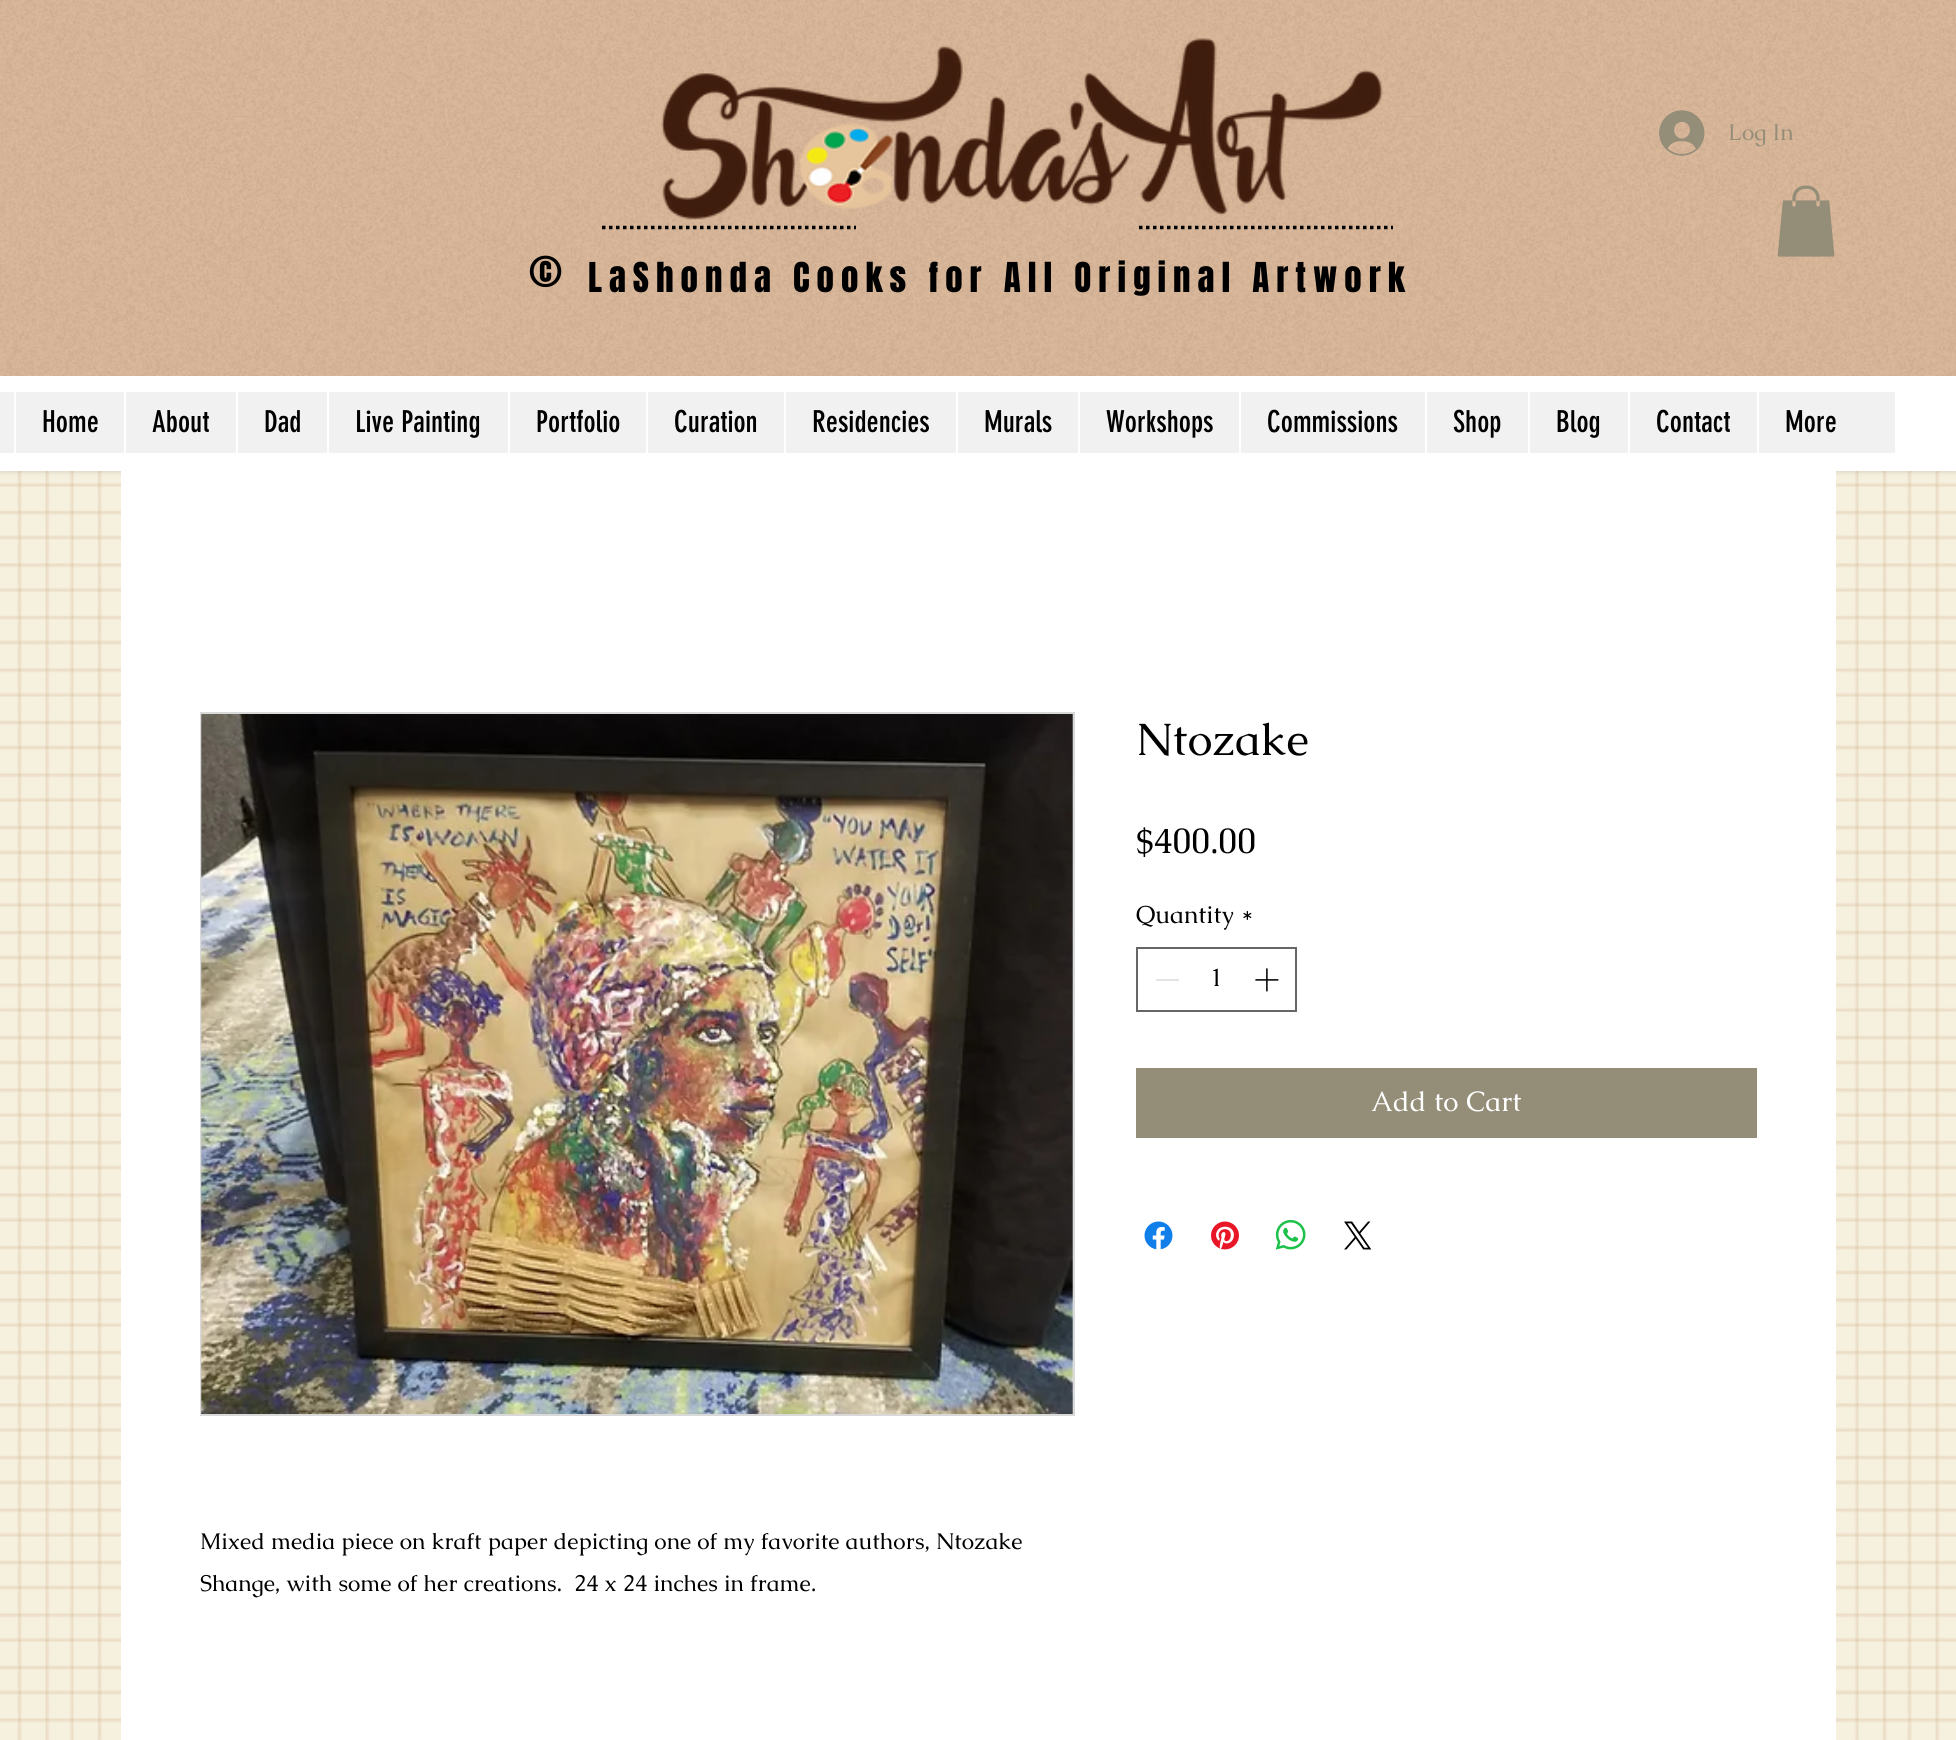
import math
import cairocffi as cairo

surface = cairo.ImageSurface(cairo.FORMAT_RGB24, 1956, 1740)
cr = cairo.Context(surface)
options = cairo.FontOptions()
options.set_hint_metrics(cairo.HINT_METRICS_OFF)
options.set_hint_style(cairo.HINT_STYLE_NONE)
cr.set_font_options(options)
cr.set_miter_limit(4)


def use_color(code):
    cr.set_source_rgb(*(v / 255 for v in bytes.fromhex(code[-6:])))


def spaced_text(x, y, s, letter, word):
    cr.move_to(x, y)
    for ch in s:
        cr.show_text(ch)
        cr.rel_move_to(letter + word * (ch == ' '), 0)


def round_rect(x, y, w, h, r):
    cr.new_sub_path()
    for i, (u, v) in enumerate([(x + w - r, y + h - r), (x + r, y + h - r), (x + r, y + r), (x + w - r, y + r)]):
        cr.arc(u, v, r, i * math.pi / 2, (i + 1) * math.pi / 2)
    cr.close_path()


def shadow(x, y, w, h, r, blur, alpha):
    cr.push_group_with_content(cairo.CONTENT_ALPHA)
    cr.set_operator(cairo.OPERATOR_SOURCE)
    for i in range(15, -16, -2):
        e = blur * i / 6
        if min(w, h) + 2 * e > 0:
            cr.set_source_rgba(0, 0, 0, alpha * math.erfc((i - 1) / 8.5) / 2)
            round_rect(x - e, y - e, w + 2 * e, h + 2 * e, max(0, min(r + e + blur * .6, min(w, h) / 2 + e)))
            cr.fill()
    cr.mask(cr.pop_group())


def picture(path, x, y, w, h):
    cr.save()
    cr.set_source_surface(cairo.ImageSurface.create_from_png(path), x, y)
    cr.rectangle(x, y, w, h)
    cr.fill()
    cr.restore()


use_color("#f6f0df")
cr.paint()
picture("img11.png", 0, 471, 1956, 1269)
use_color("#000000")
shadow(0, 0, 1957, 466, 0, 4.5, 0.7)
use_color("#dbb89a")
cr.rectangle(0, 0, 1956, 376)
cr.fill()
picture("img1.png", 0, 0, 1956, 376)
picture("img2.png", 661, 38, 722, 182)
picture("img3.png", 1659, 110, 46, 46)
cr.select_font_face("Caudex")
cr.set_font_size(22.75)
use_color("#948d78")
cr.move_to(1728, 140)
cr.show_text("Log In")
cr.new_path()
cr.move_to(602, 227.5)
cr.line_to(856, 227.5)
use_color("#000000")
cr.set_line_width(3.5)
cr.set_dash([3.5, 3.5])
cr.stroke()
cr.new_path()
cr.move_to(1139, 227.5)
cr.line_to(1393, 227.5)
cr.stroke()
picture("img4.png", 1777, 185, 58, 72)
cr.select_font_face("Anton")
cr.set_font_size(49)
spaced_text(529, 292, "©", 7, 0)
cr.set_font_size(35)
spaced_text(588, 292, "LaShonda Cooks for All Original Artwork", 7, 0)
use_color("#ffffff")
cr.rectangle(0, 376, 1956, 95)
cr.fill()
use_color("#f1f1f1")
cr.rectangle(0, 392, 1895, 61)
cr.fill()
use_color("#ffffff")
cr.rectangle(14, 392, 2, 61)
cr.fill()
cr.select_font_face("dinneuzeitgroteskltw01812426")
cr.set_font_size(29.75)
use_color("#000000")
cr.move_to(42, 432)
cr.show_text("Home")
use_color("#ffffff")
cr.rectangle(124, 392, 2, 61)
cr.fill()
use_color("#000000")
cr.move_to(152, 432)
cr.show_text("About")
use_color("#ffffff")
cr.rectangle(236, 392, 2, 61)
cr.fill()
use_color("#000000")
cr.move_to(264, 432)
cr.show_text("Dad")
use_color("#ffffff")
cr.rectangle(327, 392, 2, 61)
cr.fill()
use_color("#000000")
cr.move_to(355, 432)
cr.show_text("Live Painting")
use_color("#ffffff")
cr.rectangle(508, 392, 2, 61)
cr.fill()
use_color("#000000")
cr.move_to(536, 432)
cr.show_text("Portfolio")
use_color("#ffffff")
cr.rectangle(646, 392, 2, 61)
cr.fill()
use_color("#000000")
cr.move_to(674, 432)
cr.show_text("Curation")
use_color("#ffffff")
cr.rectangle(784, 392, 2, 61)
cr.fill()
use_color("#000000")
cr.move_to(812, 432)
cr.show_text("Residencies")
use_color("#ffffff")
cr.rectangle(956, 392, 2, 61)
cr.fill()
use_color("#000000")
cr.move_to(984, 432)
cr.show_text("Murals")
use_color("#ffffff")
cr.rectangle(1078, 392, 2, 61)
cr.fill()
use_color("#000000")
cr.move_to(1106, 432)
cr.show_text("Workshops")
use_color("#ffffff")
cr.rectangle(1239, 392, 2, 61)
cr.fill()
use_color("#000000")
cr.move_to(1267, 432)
cr.show_text("Commissions")
use_color("#ffffff")
cr.rectangle(1425, 392, 2, 61)
cr.fill()
use_color("#000000")
cr.move_to(1453, 432)
cr.show_text("Shop")
use_color("#ffffff")
cr.rectangle(1528, 392, 2, 61)
cr.fill()
use_color("#000000")
cr.move_to(1556, 432)
cr.show_text("Blog")
use_color("#ffffff")
cr.rectangle(1628, 392, 2, 61)
cr.fill()
use_color("#000000")
cr.move_to(1656, 432)
cr.show_text("Contact")
use_color("#ffffff")
cr.rectangle(1757, 392, 2, 61)
cr.fill()
use_color("#000000")
cr.move_to(1785, 432)
cr.show_text("More")
use_color("#ffffff")
cr.rectangle(121, 471, 1715, 1269)
cr.fill()
cr.select_font_face("Caudex")
cr.set_font_size(45.5)
use_color("#000000")
cr.move_to(1136, 755)
cr.show_text("Ntozake")
cr.set_font_size(35)
cr.move_to(1136, 853)
cr.show_text("$400.00")
cr.set_font_size(24.5)
cr.move_to(1136, 923)
cr.show_text("Quantity")
cr.move_to(1241, 923)
cr.show_text("*")
cr.rectangle(1137, 948, 159, 63)
use_color("#666666")
cr.set_line_width(2)
cr.set_dash([])
cr.stroke()
use_color("#e3e3e3")
cr.rectangle(1156, 979, 23, 2)
cr.fill()
use_color("#000000")
cr.move_to(1210, 986)
cr.show_text("1")
picture("img5.png", 1255, 968, 24, 24)
use_color("#948d78")
cr.rectangle(1136, 1068, 621, 70)
cr.fill()
cr.set_font_size(28)
use_color("#ffffff")
cr.move_to(1371, 1111)
cr.show_text("Add to Cart")
picture("img6.png", 1144, 1221, 29, 29)
picture("img7.png", 1211, 1221, 28, 29)
picture("img8.png", 1275, 1219, 31, 31)
picture("img9.png", 1344, 1221, 28, 29)
cr.rectangle(201, 713, 873, 702)
use_color("#d9d9d9")
cr.stroke()
picture("img10.png", 201, 714, 872, 700)
cr.set_font_size(22.75)
use_color("#000000")
cr.move_to(200, 1549)
cr.show_text("Mixed media piece on kraft paper depicting one of my favorite authors, Ntozake")
cr.move_to(200, 1591)
cr.show_text("Shange, with some of her creations.  24 x 24 inches in frame.")
surface.write_to_png("result.png")
